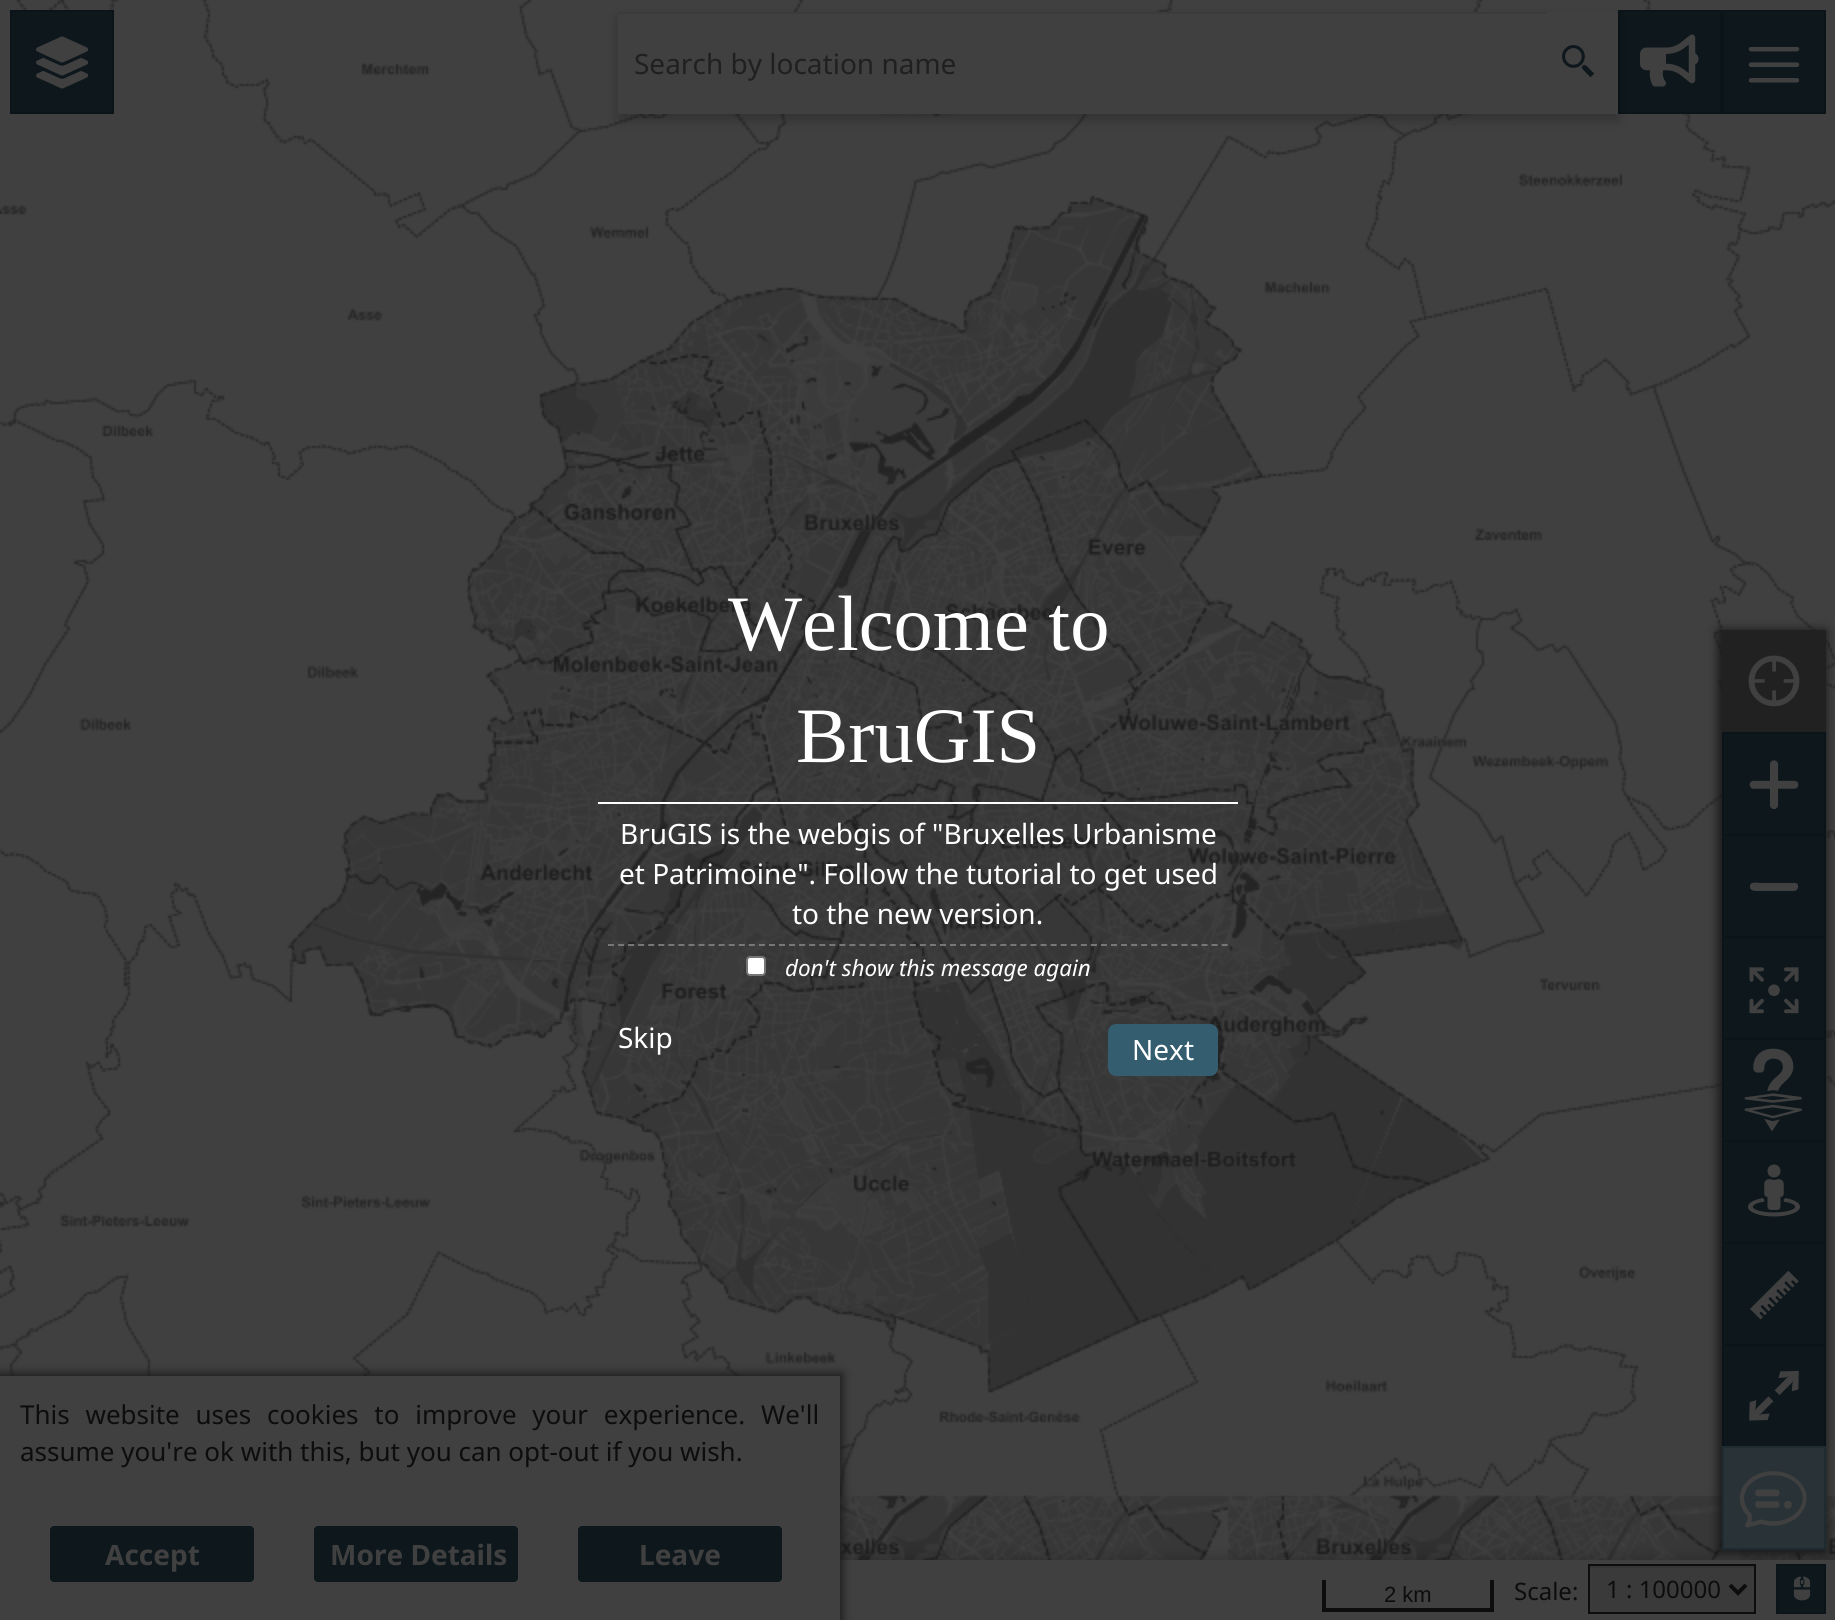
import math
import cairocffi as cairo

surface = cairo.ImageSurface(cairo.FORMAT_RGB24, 1835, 1620)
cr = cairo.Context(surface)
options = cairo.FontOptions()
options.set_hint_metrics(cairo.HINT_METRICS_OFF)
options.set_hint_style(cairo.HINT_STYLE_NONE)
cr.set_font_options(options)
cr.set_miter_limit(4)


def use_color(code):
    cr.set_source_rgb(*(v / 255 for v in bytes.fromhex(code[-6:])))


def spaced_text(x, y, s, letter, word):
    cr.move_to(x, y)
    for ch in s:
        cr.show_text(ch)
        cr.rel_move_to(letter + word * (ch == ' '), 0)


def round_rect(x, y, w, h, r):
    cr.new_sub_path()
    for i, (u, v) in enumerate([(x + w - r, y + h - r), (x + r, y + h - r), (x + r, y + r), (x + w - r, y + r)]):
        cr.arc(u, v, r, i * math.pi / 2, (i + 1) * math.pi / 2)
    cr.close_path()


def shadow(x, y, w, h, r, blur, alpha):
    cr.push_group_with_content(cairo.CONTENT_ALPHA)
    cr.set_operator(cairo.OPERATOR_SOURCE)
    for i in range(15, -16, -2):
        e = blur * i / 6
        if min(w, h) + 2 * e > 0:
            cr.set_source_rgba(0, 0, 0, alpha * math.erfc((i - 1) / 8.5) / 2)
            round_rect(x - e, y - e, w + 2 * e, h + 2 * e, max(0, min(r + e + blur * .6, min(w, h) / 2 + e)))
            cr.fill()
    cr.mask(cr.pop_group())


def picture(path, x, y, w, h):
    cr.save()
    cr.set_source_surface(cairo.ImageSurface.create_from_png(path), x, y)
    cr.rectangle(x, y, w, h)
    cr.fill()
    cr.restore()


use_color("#404040")
cr.paint()
picture("img1.png", 0, 0, 1835, 1560)
use_color("#0d171c")
cr.rectangle(11, 11, 102, 102)
cr.fill_preserve()
use_color("#0b1418")
cr.stroke()
picture("img2.png", 36, 36, 53, 53)
use_color("#0d171c")
cr.rectangle(1620, 12, 100, 100)
cr.fill()
use_color("#0b1418")
cr.rectangle(1618, 10, 208, 2)
cr.fill()
cr.rectangle(1720, 10, 2, 104)
cr.fill()
cr.rectangle(1618, 112, 104, 2)
cr.fill()
cr.rectangle(1618, 10, 2, 104)
cr.fill()
picture("img3.png", 1640, 34, 59, 53)
use_color("#000000")
shadow(618, 18, 1000, 102, 0, 6, 0.23)
use_color("#404040")
cr.rectangle(618, 12, 1000, 102)
cr.fill()
use_color("#3b3b3b")
cr.rectangle(618, 12, 928, 2)
cr.fill()
cr.select_font_face("Noto Sans")
cr.set_font_size(28)
use_color("#202020")
cr.move_to(634, 74)
cr.show_text("Search by location name")
picture("img4.png", 1562, 45, 33, 33)
use_color("#0d171c")
cr.rectangle(1724, 12, 100, 100)
cr.fill()
use_color("#0b1418")
cr.rectangle(1824, 10, 2, 104)
cr.fill()
cr.rectangle(1722, 112, 104, 2)
cr.fill()
cr.rectangle(1722, 10, 2, 104)
cr.fill()
picture("img5.png", 1748, 46, 52, 37)
use_color("#181818")
shadow(1718, 630, 108, 924, 0, 5, 1)
use_color("#0d171c")
cr.rectangle(1723, 937, 102, 102)
cr.fill_preserve()
use_color("#0b1418")
cr.stroke()
use_color("#0d171c")
cr.rectangle(1723, 1039, 102, 102)
cr.fill_preserve()
use_color("#0b1418")
cr.stroke()
use_color("#0d171c")
cr.rectangle(1723, 1141, 102, 102)
cr.fill_preserve()
use_color("#0b1418")
cr.stroke()
use_color("#0d171c")
cr.rectangle(1723, 1243, 102, 102)
cr.fill_preserve()
use_color("#0b1418")
cr.stroke()
use_color("#0d171c")
cr.rectangle(1723, 1345, 102, 102)
cr.fill_preserve()
use_color("#0b1418")
cr.stroke()
use_color("#293236")
cr.rectangle(1723, 1447, 102, 102)
cr.fill_preserve()
use_color("#1e2b31")
cr.stroke()
use_color("#000000")
shadow(8, 1560, 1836, 60, 0, 8, 0.24)
use_color("#404040")
cr.rectangle(840, 1560, 995, 60)
cr.fill()
use_color("#181818")
shadow(-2, 1374, 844, 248, 0, 5, 1)
use_color("#404040")
cr.rectangle(0, 1376, 840, 244)
cr.fill()
cr.set_font_size(26)
use_color("#0d0d0d")
spaced_text(20, 1424, "This website uses cookies to improve your experience. We'll", 0, 9)
cr.move_to(20, 1461)
cr.show_text("assume you're ok with this, but you can opt-out if you wish.")
use_color("#0d171c")
round_rect(50, 1526, 204, 56, 4)
cr.fill()
cr.select_font_face("Noto Sans", cairo.FONT_SLANT_NORMAL, cairo.FONT_WEIGHT_BOLD)
cr.set_font_size(28)
use_color("#404040")
cr.move_to(105, 1565)
cr.show_text("Accept")
use_color("#0d171c")
round_rect(314, 1526, 204, 56, 4)
cr.fill()
use_color("#404040")
cr.move_to(330, 1565)
cr.show_text("More Details")
use_color("#0d171c")
round_rect(578, 1526, 204, 56, 4)
cr.fill()
use_color("#404040")
cr.move_to(639, 1565)
cr.show_text("Leave")
use_color("#212121")
cr.rectangle(1722, 630, 104, 102)
cr.fill()
picture("img6.png", 1748, 655, 52, 52)
use_color("#0d171c")
cr.rectangle(1723, 733, 102, 102)
cr.fill_preserve()
use_color("#0b1418")
cr.stroke()
picture("img7.png", 1749, 760, 50, 50)
use_color("#0d171c")
cr.rectangle(1723, 835, 102, 102)
cr.fill_preserve()
use_color("#0b1418")
cr.stroke()
use_color("#404040")
cr.new_path()
cr.move_to(1794, 891)
cr.line_to(1761, 891)
cr.curve_to(1758, 891, 1749, 892, 1750, 886)
cr.curve_to(1750, 881, 1758, 883, 1761, 883)
cr.line_to(1796, 883)
cr.curve_to(1800, 885, 1798, 891, 1794, 891)
cr.close_path()
cr.fill()
picture("img8.png", 1749, 967, 50, 47)
picture("img9.png", 1744, 1048, 59, 84)
picture("img10.png", 1748, 1164, 52, 53)
picture("img11.png", 1750, 1270, 49, 50)
picture("img12.png", 1749, 1370, 50, 51)
picture("img13.png", 1739, 1471, 68, 57)
use_color("#0d0d0d")
cr.rectangle(1490, 1580, 4, 32)
cr.fill()
cr.rectangle(1322, 1608, 172, 4)
cr.fill()
cr.rectangle(1322, 1580, 4, 32)
cr.fill()
cr.select_font_face("Liberation Sans")
cr.set_font_size(22)
cr.move_to(1384, 1602)
cr.show_text("2 km")
cr.select_font_face("Noto Sans")
cr.set_font_size(24)
cr.move_to(1514, 1600)
cr.show_text("Scale:")
use_color("#3a3a3a")
cr.rectangle(1590, 1568, 164, 44)
cr.fill()
use_color("#353535")
cr.rectangle(1590, 1566, 164, 2)
cr.fill()
cr.rectangle(1589, 1565, 166, 48)
use_color("#0d0d0d")
cr.stroke()
cr.new_path()
cr.move_to(1730, 1585)
cr.line_to(1738, 1593)
cr.line_to(1746, 1585)
cr.set_line_width(4)
cr.stroke()
cr.move_to(1606, 1598)
cr.show_text("1 : 100000")
use_color("#0d171c")
cr.rectangle(1777, 1565, 48, 48)
cr.fill_preserve()
use_color("#0b1418")
cr.set_line_width(2)
cr.stroke()
picture("img14.png", 1793, 1576, 18, 25)
use_color("#ffffff")
cr.rectangle(598, 802, 640, 2)
cr.fill()
cr.select_font_face("Liberation Serif")
cr.set_font_size(78.5)
cr.move_to(728, 650)
cr.show_text("Welcome to")
cr.move_to(796, 762)
cr.show_text("BruGIS")
cr.select_font_face("Noto Sans")
cr.set_font_size(28)
cr.move_to(620, 844)
cr.show_text("BruGIS is the webgis of \"Bruxelles Urbanisme")
cr.move_to(619, 884)
cr.show_text("et Patrimoine\". Follow the tutorial to get used")
cr.move_to(792, 924)
cr.show_text("to the new version.")
cr.new_path()
cr.move_to(608, 945)
cr.line_to(1228, 945)
use_color("#777777")
cr.set_dash([6, 4.06])
cr.stroke()
use_color("#ffffff")
round_rect(747, 957, 18, 18, 3)
cr.fill_preserve()
use_color("#767676")
cr.set_dash([])
cr.stroke()
cr.select_font_face("Noto Sans", cairo.FONT_SLANT_ITALIC)
cr.set_font_size(22.4)
use_color("#ffffff")
cr.move_to(785, 976)
cr.show_text("don't show this message again")
cr.select_font_face("Noto Sans")
cr.set_font_size(28)
cr.move_to(618, 1048)
cr.show_text("Skip")
use_color("#345d6f")
round_rect(1108, 1024, 110, 52, 8)
cr.fill()
use_color("#ffffff")
cr.move_to(1132, 1060)
cr.show_text("Next")
surface.write_to_png("result.png")
